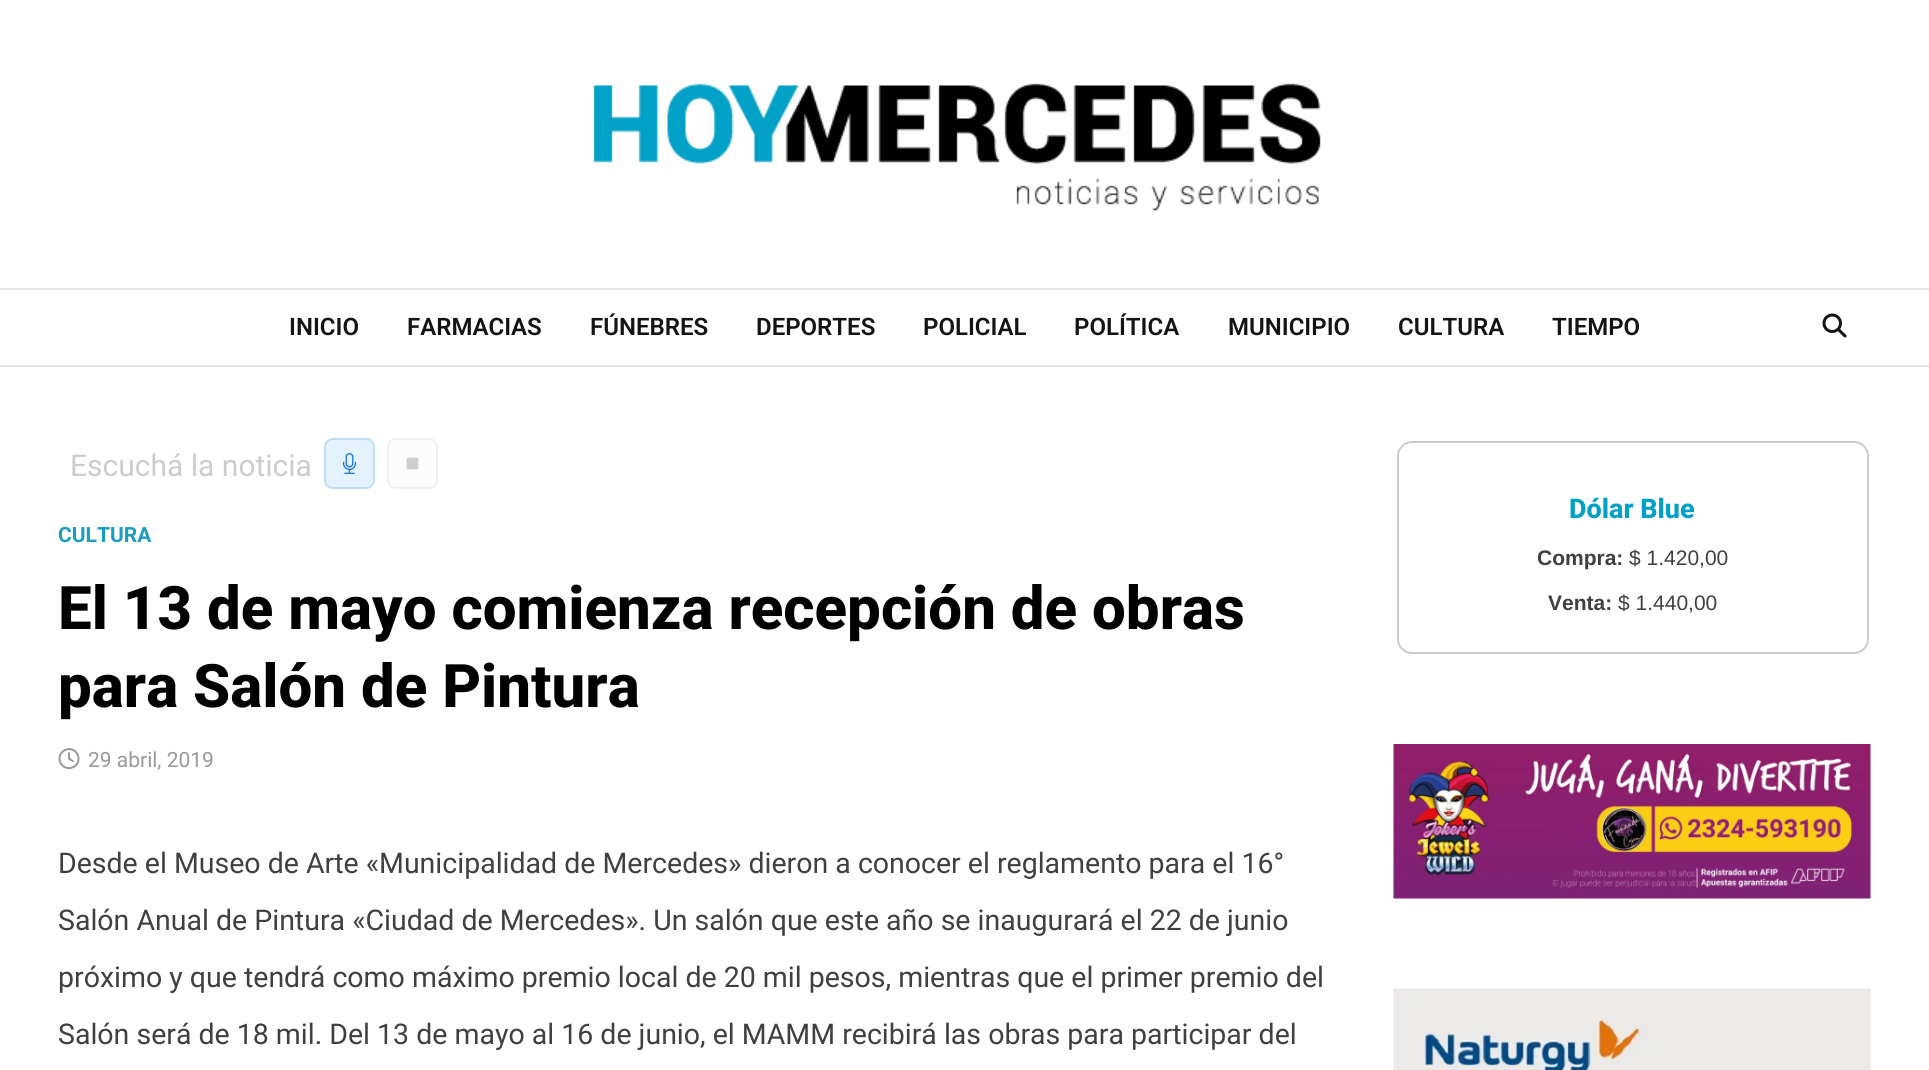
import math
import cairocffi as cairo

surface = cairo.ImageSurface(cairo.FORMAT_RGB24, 1929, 1070)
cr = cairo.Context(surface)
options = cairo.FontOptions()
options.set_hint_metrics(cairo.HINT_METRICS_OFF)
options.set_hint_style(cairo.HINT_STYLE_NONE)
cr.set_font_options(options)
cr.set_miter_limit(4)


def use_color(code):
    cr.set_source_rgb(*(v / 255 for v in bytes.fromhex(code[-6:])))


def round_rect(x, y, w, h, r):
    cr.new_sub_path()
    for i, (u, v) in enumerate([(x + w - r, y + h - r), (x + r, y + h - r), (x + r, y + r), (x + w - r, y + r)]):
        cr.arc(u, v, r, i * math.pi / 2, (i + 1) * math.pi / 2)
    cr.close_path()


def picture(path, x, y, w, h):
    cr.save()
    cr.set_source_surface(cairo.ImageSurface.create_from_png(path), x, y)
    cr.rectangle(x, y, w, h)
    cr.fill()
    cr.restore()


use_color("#ffffff")
cr.paint()
picture("img1.png", 593, 83, 728, 128)
use_color("#e2e2e2")
cr.rectangle(0, 288, 1929, 2)
cr.fill()
cr.rectangle(0, 365, 1929, 2)
cr.fill()
cr.select_font_face("Roboto SemiBold")
cr.set_font_size(24)
use_color("#141414")
cr.move_to(289, 335)
cr.show_text("INICIO")
cr.move_to(407, 335)
cr.show_text("FARMACIAS")
cr.move_to(590, 335)
cr.show_text("FÚNEBRES")
cr.move_to(756, 335)
cr.show_text("DEPORTES")
cr.move_to(923, 335)
cr.show_text("POLICIAL")
cr.move_to(1074, 335)
cr.show_text("POLÍTICA")
cr.move_to(1228, 335)
cr.show_text("MUNICIPIO")
cr.move_to(1398, 335)
cr.show_text("CULTURA")
cr.move_to(1552, 335)
cr.show_text("TIEMPO")
picture("img2.png", 1822, 313, 25, 25)
cr.select_font_face("Roboto")
cr.set_font_size(30)
use_color("#cccccc")
cr.move_to(70, 476)
cr.show_text("Escuchá la noticia")
use_color("#e3f2fd")
round_rect(325, 439, 49, 49, 8)
cr.fill_preserve()
use_color("#bbdefb")
cr.stroke()
picture("img3.png", 342, 453, 15, 21)
use_color("#fcfcfc")
round_rect(388, 439, 49, 49, 8)
cr.fill_preserve()
use_color("#f0f0f0")
cr.stroke()
picture("img4.png", 406, 457, 13, 13)
cr.select_font_face("Roboto", cairo.FONT_SLANT_NORMAL, cairo.FONT_WEIGHT_BOLD)
cr.set_font_size(21)
use_color("#199dc0")
cr.move_to(58, 542)
cr.show_text("CULTURA")
cr.select_font_face("Roboto ExtraBold")
cr.set_font_size(60)
use_color("#000000")
cr.move_to(58, 629)
cr.show_text("El 13 de mayo comienza recepción de obras")
cr.move_to(58, 707)
cr.show_text("para Salón de Pintura")
picture("img5.png", 58, 748, 22, 22)
cr.select_font_face("Roboto")
cr.set_font_size(21)
use_color("#999999")
cr.move_to(88, 767)
cr.show_text("29 abril, 2019")
cr.set_font_size(28.5)
use_color("#404040")
cr.move_to(58, 873)
cr.show_text("Desde el Museo de Arte «Municipalidad de Mercedes» dieron a conocer el reglamento para el 16°")
cr.move_to(58, 930)
cr.show_text("Salón Anual de Pintura «Ciudad de Mercedes». Un salón que este año se inaugurará el 22 de junio")
cr.move_to(58, 987)
cr.show_text("próximo y que tendrá como máximo premio local de 20 mil pesos, mientras que el primer premio del")
cr.move_to(58, 1044)
cr.show_text("Salón será de 18 mil. Del 13 de mayo al 16 de junio, el MAMM recibirá las obras para participar del")
round_rect(1398, 442, 470, 211, 14)
use_color("#cccccc")
cr.stroke()
cr.select_font_face("Roboto ExtraBold")
cr.set_font_size(27)
use_color("#01a0c6")
cr.move_to(1569, 518)
cr.show_text("Dólar Blue")
cr.select_font_face("Liberation Sans", cairo.FONT_SLANT_NORMAL, cairo.FONT_WEIGHT_BOLD)
cr.set_font_size(21)
use_color("#404040")
cr.move_to(1537, 565)
cr.show_text("Compra:")
cr.select_font_face("Liberation Sans")
cr.move_to(1629, 565)
cr.show_text("$ 1.420,00")
cr.select_font_face("Liberation Sans", cairo.FONT_SLANT_NORMAL, cairo.FONT_WEIGHT_BOLD)
cr.move_to(1548, 610)
cr.show_text("Venta:")
cr.select_font_face("Liberation Sans")
cr.move_to(1618, 610)
cr.show_text("$ 1.440,00")
picture("img6.png", 1393, 744, 478, 155)
picture("img7.png", 1393, 988, 478, 82)
surface.write_to_png("result.png")
